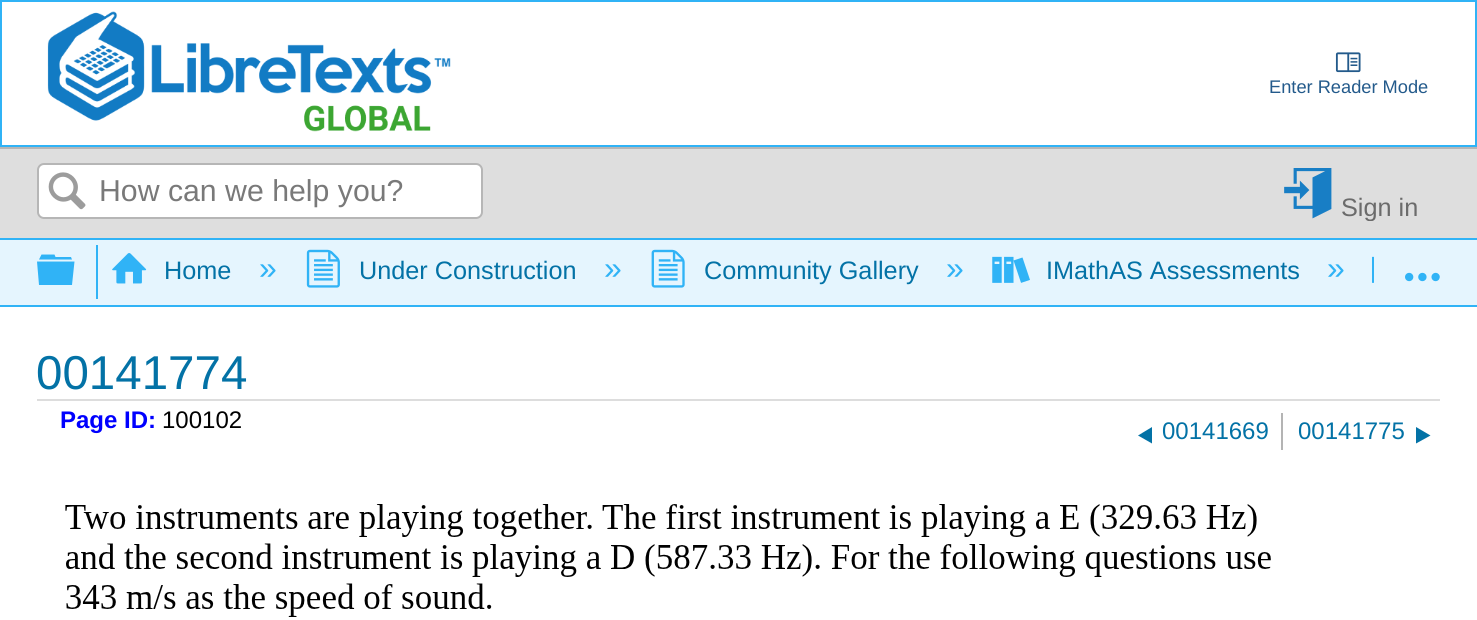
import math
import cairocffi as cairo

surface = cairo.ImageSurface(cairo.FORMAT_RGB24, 1477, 620)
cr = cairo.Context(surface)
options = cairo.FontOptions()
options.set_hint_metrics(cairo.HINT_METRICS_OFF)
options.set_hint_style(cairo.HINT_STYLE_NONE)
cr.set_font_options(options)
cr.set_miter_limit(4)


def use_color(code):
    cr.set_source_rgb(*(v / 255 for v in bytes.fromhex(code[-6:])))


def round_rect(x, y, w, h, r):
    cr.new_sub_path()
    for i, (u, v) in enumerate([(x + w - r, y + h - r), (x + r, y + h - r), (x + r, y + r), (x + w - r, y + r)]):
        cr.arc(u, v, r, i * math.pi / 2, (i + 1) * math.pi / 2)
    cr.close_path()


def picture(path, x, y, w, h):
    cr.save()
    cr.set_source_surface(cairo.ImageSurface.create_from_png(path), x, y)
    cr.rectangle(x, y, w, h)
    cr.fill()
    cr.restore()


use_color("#ffffff")
cr.paint()
cr.rectangle(1, 1, 1475, 145)
use_color("#30b3f6")
cr.stroke()
picture("img1.png", 47, 11, 404, 121)
picture("img2.png", 1335, 52, 26, 21)
cr.select_font_face("Liberation Sans")
cr.set_font_size(18.25)
use_color("#235a8b")
cr.move_to(1269, 93)
cr.show_text("Enter Reader Mode")
use_color("#dedede")
cr.rectangle(0, 149, 1477, 89)
cr.fill()
use_color("#b6b6b6")
cr.rectangle(0, 147, 1477, 2)
cr.fill()
use_color("#ffffff")
round_rect(38, 164, 444, 54, 6)
cr.fill_preserve()
use_color("#b6b6b6")
cr.stroke()
picture("img3.png", 48, 172, 38, 38)
cr.set_font_size(30.25)
use_color("#797979")
cr.move_to(99, 201)
cr.show_text("How can we help you?")
picture("img4.png", 1284, 168, 48, 51)
cr.save()
cr.rectangle(1281, 166, 147, 55)
cr.clip()
cr.set_font_size(25.25)
use_color("#6b6b6b")
cr.move_to(1341, 216)
cr.show_text("Sign in")
cr.restore()
use_color("#e5f5fe")
cr.rectangle(0, 240, 1477, 65)
cr.fill()
use_color("#30b3f6")
cr.rectangle(0, 238, 1477, 2)
cr.fill()
cr.rectangle(0, 305, 1477, 2)
cr.fill()
cr.new_path()
cr.move_to(37, 261.5)
cr.line_to(74.5, 261.5)
cr.line_to(72, 285)
cr.line_to(39, 285)
cr.close_path()
cr.move_to(71, 257)
cr.line_to(72, 259.5)
cr.line_to(39, 259.5)
cr.line_to(41.5, 254.5)
cr.line_to(54.5, 254.5)
cr.line_to(55.5, 257)
cr.close_path()
cr.fill()
cr.rectangle(96, 245, 2, 54)
cr.fill()
picture("img5.png", 112, 253, 35, 31)
cr.set_font_size(25.25)
use_color("#0372a6")
cr.move_to(164, 279)
cr.show_text("Home")
cr.set_font_size(32)
use_color("#30b3f6")
cr.move_to(259, 279)
cr.show_text("»")
picture("img6.png", 306, 249, 34, 39)
cr.set_font_size(25.25)
use_color("#0372a6")
cr.move_to(359, 279)
cr.show_text("Under Construction")
cr.set_font_size(32)
use_color("#30b3f6")
cr.move_to(604, 279)
cr.show_text("»")
picture("img7.png", 651, 249, 34, 39)
cr.set_font_size(25.25)
use_color("#0372a6")
cr.move_to(704, 279)
cr.show_text("Community Gallery")
cr.set_font_size(32)
use_color("#30b3f6")
cr.move_to(946, 279)
cr.show_text("»")
picture("img8.png", 992, 256, 38, 27)
cr.set_font_size(25.25)
use_color("#0372a6")
cr.move_to(1046, 279)
cr.show_text("IMathAS Assessments")
cr.set_font_size(32)
use_color("#30b3f6")
cr.move_to(1327, 279)
cr.show_text("»")
picture("img9.png", 1372, 256, 2, 27)
picture("img10.png", 1405, 272, 35, 10)
use_color("#dddddd")
cr.rectangle(37, 399, 1403, 2)
cr.fill()
cr.set_font_size(47.5)
use_color("#0372a6")
cr.move_to(36, 389)
cr.show_text("00141774")
cr.select_font_face("Liberation Sans", cairo.FONT_SLANT_NORMAL, cairo.FONT_WEIGHT_BOLD)
cr.set_font_size(24)
use_color("#0000ff")
cr.move_to(60, 428)
cr.show_text("Page ID:")
cr.select_font_face("Liberation Sans")
use_color("#000000")
cr.move_to(162, 428)
cr.show_text("100102")
use_color("#b4b4b4")
cr.rectangle(1281, 413, 2, 37)
cr.fill()
use_color("#0372a6")
cr.new_path()
cr.move_to(1152, 427)
cr.line_to(1152, 443.5)
cr.line_to(1138, 435.5)
cr.close_path()
cr.fill()
cr.move_to(1162, 439)
cr.show_text("00141669")
cr.move_to(1298, 439)
cr.show_text("00141775")
cr.new_path()
cr.move_to(1416, 427)
cr.line_to(1416, 443.5)
cr.line_to(1430.5, 435.5)
cr.close_path()
cr.fill()
picture("img11.png", 65, 504, 1206, 113)
surface.write_to_png("result.png")
